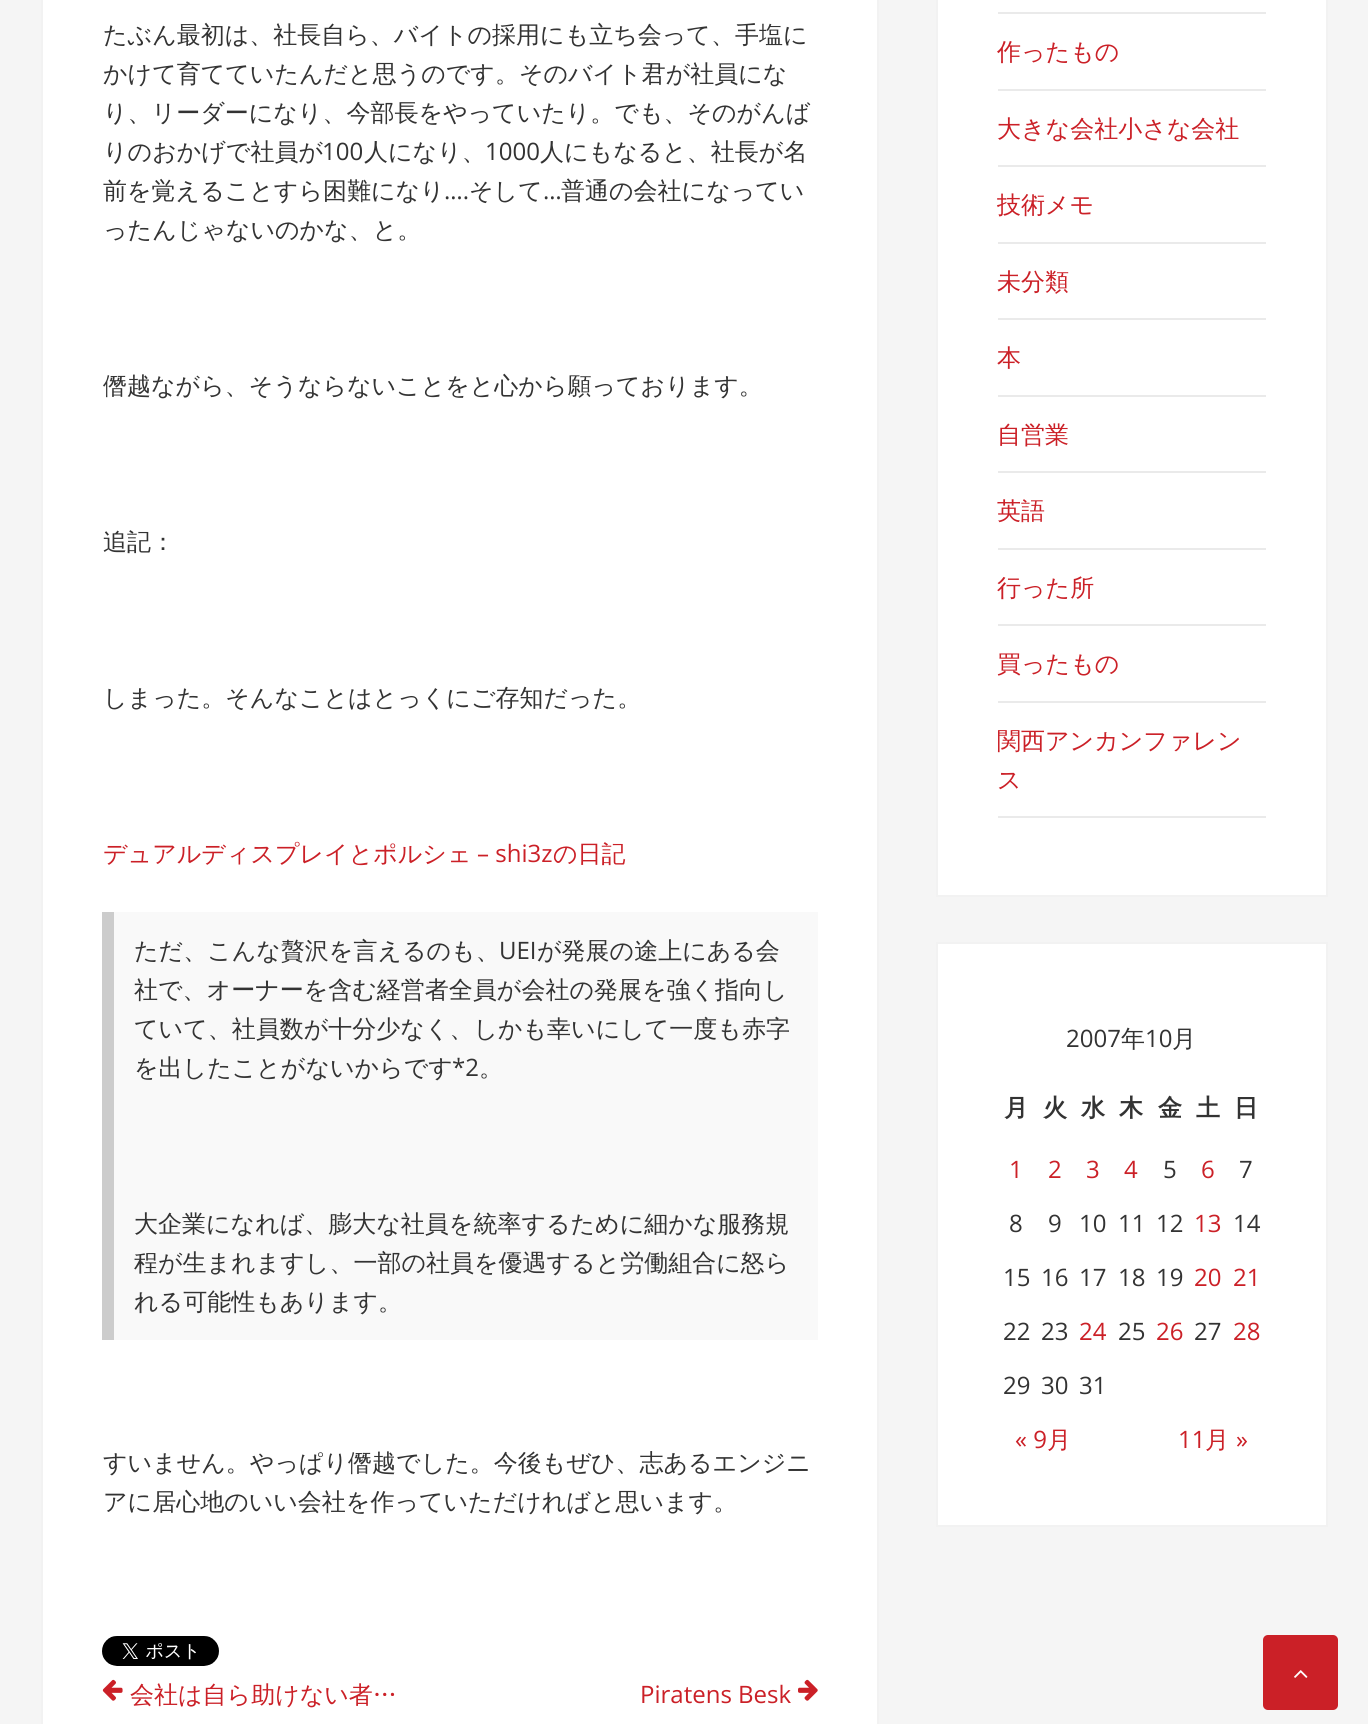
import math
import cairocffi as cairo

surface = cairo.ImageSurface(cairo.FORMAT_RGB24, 1368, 1724)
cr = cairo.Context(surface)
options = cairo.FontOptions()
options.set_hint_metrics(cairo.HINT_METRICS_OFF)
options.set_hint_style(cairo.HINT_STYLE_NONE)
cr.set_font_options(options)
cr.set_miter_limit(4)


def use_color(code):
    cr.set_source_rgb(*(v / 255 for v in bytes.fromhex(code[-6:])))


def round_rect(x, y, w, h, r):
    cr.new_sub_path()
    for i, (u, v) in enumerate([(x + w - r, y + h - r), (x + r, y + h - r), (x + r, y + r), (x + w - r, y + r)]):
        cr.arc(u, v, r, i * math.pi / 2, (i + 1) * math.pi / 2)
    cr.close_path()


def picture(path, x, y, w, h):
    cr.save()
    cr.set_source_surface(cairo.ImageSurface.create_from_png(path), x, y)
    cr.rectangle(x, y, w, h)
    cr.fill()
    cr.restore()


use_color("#f5f5f5")
cr.paint()
use_color("#ffffff")
cr.rectangle(42, -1, 836, 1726)
cr.fill_preserve()
use_color("#f2f2f2")
cr.stroke()
cr.select_font_face("WenQuanYi Zen Hei Medium")
cr.set_font_size(24)
use_color("#333333")
cr.move_to(103, 43)
cr.show_text("たぶん最初は、社長自ら、バイトの採用にも立ち会って、手塩に")
cr.move_to(103, 82)
cr.show_text("かけて育てていたんだと思うのです。そのバイト君が社員にな")
cr.move_to(103, 121)
cr.show_text("り、リーダーになり、今部長をやっていたり。でも、そのがんば")
cr.move_to(103, 160)
cr.show_text("りのおかげで社員が")
cr.select_font_face("Open Sans")
cr.move_to(322, 160)
cr.show_text("100")
cr.select_font_face("WenQuanYi Zen Hei Medium")
cr.move_to(364, 160)
cr.show_text("人になり、")
cr.select_font_face("Open Sans")
cr.move_to(485, 160)
cr.show_text("1000")
cr.select_font_face("WenQuanYi Zen Hei Medium")
cr.move_to(540, 160)
cr.show_text("人にもなると、社長が名")
cr.move_to(103, 199)
cr.show_text("前を覚えることすら困難になり")
cr.select_font_face("Open Sans")
cr.move_to(444, 199)
cr.show_text("….")
cr.select_font_face("WenQuanYi Zen Hei Medium")
cr.move_to(469, 199)
cr.show_text("そして")
cr.select_font_face("Open Sans")
cr.move_to(543, 199)
cr.show_text("…")
cr.select_font_face("WenQuanYi Zen Hei Medium")
cr.move_to(561, 199)
cr.show_text("普通の会社になってい")
cr.move_to(103, 238)
cr.show_text("ったんじゃないのかな、と。")
cr.move_to(103, 394)
cr.show_text("僭越ながら、そうならないことをと心から願っております。")
cr.move_to(103, 550)
cr.show_text("追記：")
cr.move_to(103, 706)
cr.show_text("しまった。そんなことはとっくにご存知だった。")
use_color("#cb2027")
cr.move_to(103, 862)
cr.show_text("デュアルディスプレイとポルシェ")
cr.select_font_face("Open Sans")
cr.move_to(477, 862)
cr.show_text("– shi3z")
cr.select_font_face("WenQuanYi Zen Hei Medium")
cr.move_to(553, 862)
cr.show_text("の日記")
use_color("#f9f9f9")
cr.rectangle(114, 912, 704, 428)
cr.fill()
use_color("#cccccc")
cr.rectangle(102, 912, 12, 428)
cr.fill()
use_color("#333333")
cr.move_to(134, 959)
cr.show_text("ただ、こんな贅沢を言えるのも、")
cr.select_font_face("Open Sans")
cr.move_to(499, 959)
cr.show_text("UEI")
cr.select_font_face("WenQuanYi Zen Hei Medium")
cr.move_to(537, 959)
cr.show_text("が発展の途上にある会")
cr.move_to(134, 998)
cr.show_text("社で、オーナーを含む経営者全員が会社の発展を強く指向し")
cr.move_to(134, 1037)
cr.show_text("ていて、社員数が十分少なく、しかも幸いにして一度も赤字")
cr.move_to(134, 1076)
cr.show_text("を出したことがないからです")
cr.select_font_face("Open Sans")
cr.move_to(452, 1076)
cr.show_text("*2")
cr.select_font_face("WenQuanYi Zen Hei Medium")
cr.move_to(479, 1076)
cr.show_text("。")
cr.move_to(134, 1232)
cr.show_text("大企業になれば、膨大な社員を統率するために細かな服務規")
cr.move_to(134, 1271)
cr.show_text("程が生まれますし、一部の社員を優遇すると労働組合に怒ら")
cr.move_to(134, 1310)
cr.show_text("れる可能性もあります。")
cr.move_to(103, 1471)
cr.show_text("すいません。やっぱり僭越でした。今後もぜひ、志あるエンジニ")
cr.move_to(103, 1510)
cr.show_text("アに居心地のいい会社を作っていただければと思います。")
picture("img1.png", 102, 1636, 117, 30)
picture("img2.png", 102, 1679, 21, 22)
use_color("#cb2027")
cr.move_to(130, 1703)
cr.show_text("会社は自ら助けない者…")
cr.select_font_face("Open Sans")
cr.move_to(640, 1703)
cr.show_text("Piratens Besk")
picture("img3.png", 798, 1679, 20, 22)
use_color("#ffffff")
cr.rectangle(937, -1, 390, 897)
cr.fill_preserve()
use_color("#f2f2f2")
cr.stroke()
use_color("#eaeaea")
cr.rectangle(998, 12, 268, 2)
cr.fill()
cr.rectangle(998, 89, 268, 2)
cr.fill()
cr.select_font_face("WenQuanYi Zen Hei Medium")
use_color("#cb2027")
cr.move_to(997, 60)
cr.show_text("作ったもの")
use_color("#eaeaea")
cr.rectangle(998, 165, 268, 2)
cr.fill()
use_color("#cb2027")
cr.move_to(997, 137)
cr.show_text("大きな会社小さな会社")
use_color("#eaeaea")
cr.rectangle(998, 242, 268, 2)
cr.fill()
use_color("#cb2027")
cr.move_to(997, 213)
cr.show_text("技術メモ")
use_color("#eaeaea")
cr.rectangle(998, 318, 268, 2)
cr.fill()
use_color("#cb2027")
cr.move_to(997, 290)
cr.show_text("未分類")
use_color("#eaeaea")
cr.rectangle(998, 395, 268, 2)
cr.fill()
use_color("#cb2027")
cr.move_to(997, 366)
cr.show_text("本")
use_color("#eaeaea")
cr.rectangle(998, 471, 268, 2)
cr.fill()
use_color("#cb2027")
cr.move_to(997, 443)
cr.show_text("自営業")
use_color("#eaeaea")
cr.rectangle(998, 548, 268, 2)
cr.fill()
use_color("#cb2027")
cr.move_to(997, 519)
cr.show_text("英語")
use_color("#eaeaea")
cr.rectangle(998, 624, 268, 2)
cr.fill()
use_color("#cb2027")
cr.move_to(997, 596)
cr.show_text("行った所")
use_color("#eaeaea")
cr.rectangle(998, 701, 268, 2)
cr.fill()
use_color("#cb2027")
cr.move_to(997, 672)
cr.show_text("買ったもの")
use_color("#eaeaea")
cr.rectangle(998, 816, 268, 2)
cr.fill()
use_color("#cb2027")
cr.move_to(997, 749)
cr.show_text("関西アンカンファレン")
cr.move_to(997, 788)
cr.show_text("ス")
use_color("#ffffff")
cr.rectangle(937, 943, 390, 583)
cr.fill_preserve()
use_color("#f2f2f2")
cr.stroke()
cr.select_font_face("Open Sans")
use_color("#333333")
cr.move_to(1066, 1047)
cr.show_text("2007")
cr.select_font_face("WenQuanYi Zen Hei Medium")
cr.move_to(1121, 1047)
cr.show_text("年")
cr.select_font_face("Open Sans")
cr.move_to(1145, 1047)
cr.show_text("10")
cr.select_font_face("WenQuanYi Zen Hei Medium")
cr.move_to(1172, 1047)
cr.show_text("月")
cr.select_font_face("WenQuanYi Zen Hei", cairo.FONT_SLANT_NORMAL, cairo.FONT_WEIGHT_BOLD)
cr.move_to(1004, 1116)
cr.show_text("月")
cr.move_to(1043, 1116)
cr.show_text("火")
cr.move_to(1081, 1116)
cr.show_text("水")
cr.move_to(1119, 1116)
cr.show_text("木")
cr.move_to(1158, 1116)
cr.show_text("金")
cr.move_to(1196, 1116)
cr.show_text("土")
cr.move_to(1234, 1116)
cr.show_text("日")
cr.select_font_face("Open Sans")
use_color("#cb2027")
cr.move_to(1009, 1178)
cr.show_text("1")
cr.move_to(1048, 1178)
cr.show_text("2")
cr.move_to(1086, 1178)
cr.show_text("3")
cr.move_to(1124, 1178)
cr.show_text("4")
use_color("#333333")
cr.move_to(1163, 1178)
cr.show_text("5")
use_color("#cb2027")
cr.move_to(1201, 1178)
cr.show_text("6")
use_color("#333333")
cr.move_to(1239, 1178)
cr.show_text("7")
cr.move_to(1009, 1232)
cr.show_text("8")
cr.move_to(1048, 1232)
cr.show_text("9")
cr.move_to(1079, 1232)
cr.show_text("10")
cr.move_to(1118, 1232)
cr.show_text("11")
cr.move_to(1156, 1232)
cr.show_text("12")
use_color("#cb2027")
cr.move_to(1194, 1232)
cr.show_text("13")
use_color("#333333")
cr.move_to(1233, 1232)
cr.show_text("14")
cr.move_to(1003, 1286)
cr.show_text("15")
cr.move_to(1041, 1286)
cr.show_text("16")
cr.move_to(1079, 1286)
cr.show_text("17")
cr.move_to(1118, 1286)
cr.show_text("18")
cr.move_to(1156, 1286)
cr.show_text("19")
use_color("#cb2027")
cr.move_to(1194, 1286)
cr.show_text("20")
cr.move_to(1233, 1286)
cr.show_text("21")
use_color("#333333")
cr.move_to(1003, 1340)
cr.show_text("22")
cr.move_to(1041, 1340)
cr.show_text("23")
use_color("#cb2027")
cr.move_to(1079, 1340)
cr.show_text("24")
use_color("#333333")
cr.move_to(1118, 1340)
cr.show_text("25")
use_color("#cb2027")
cr.move_to(1156, 1340)
cr.show_text("26")
use_color("#333333")
cr.move_to(1194, 1340)
cr.show_text("27")
use_color("#cb2027")
cr.move_to(1233, 1340)
cr.show_text("28")
use_color("#333333")
cr.move_to(1003, 1394)
cr.show_text("29")
cr.move_to(1041, 1394)
cr.show_text("30")
cr.move_to(1079, 1394)
cr.show_text("31")
use_color("#cb2027")
cr.move_to(1015, 1448)
cr.show_text("« 9")
cr.select_font_face("WenQuanYi Zen Hei Medium")
cr.move_to(1047, 1448)
cr.show_text("月")
cr.select_font_face("Open Sans")
cr.move_to(1178, 1448)
cr.show_text("11")
cr.select_font_face("WenQuanYi Zen Hei Medium")
cr.move_to(1205, 1448)
cr.show_text("月")
cr.select_font_face("Open Sans")
cr.move_to(1236, 1448)
cr.show_text("»")
round_rect(1263, 1635, 75, 75, 5)
cr.fill()
picture("img4.png", 1294, 1670, 14, 8)
surface.write_to_png("result.png")
